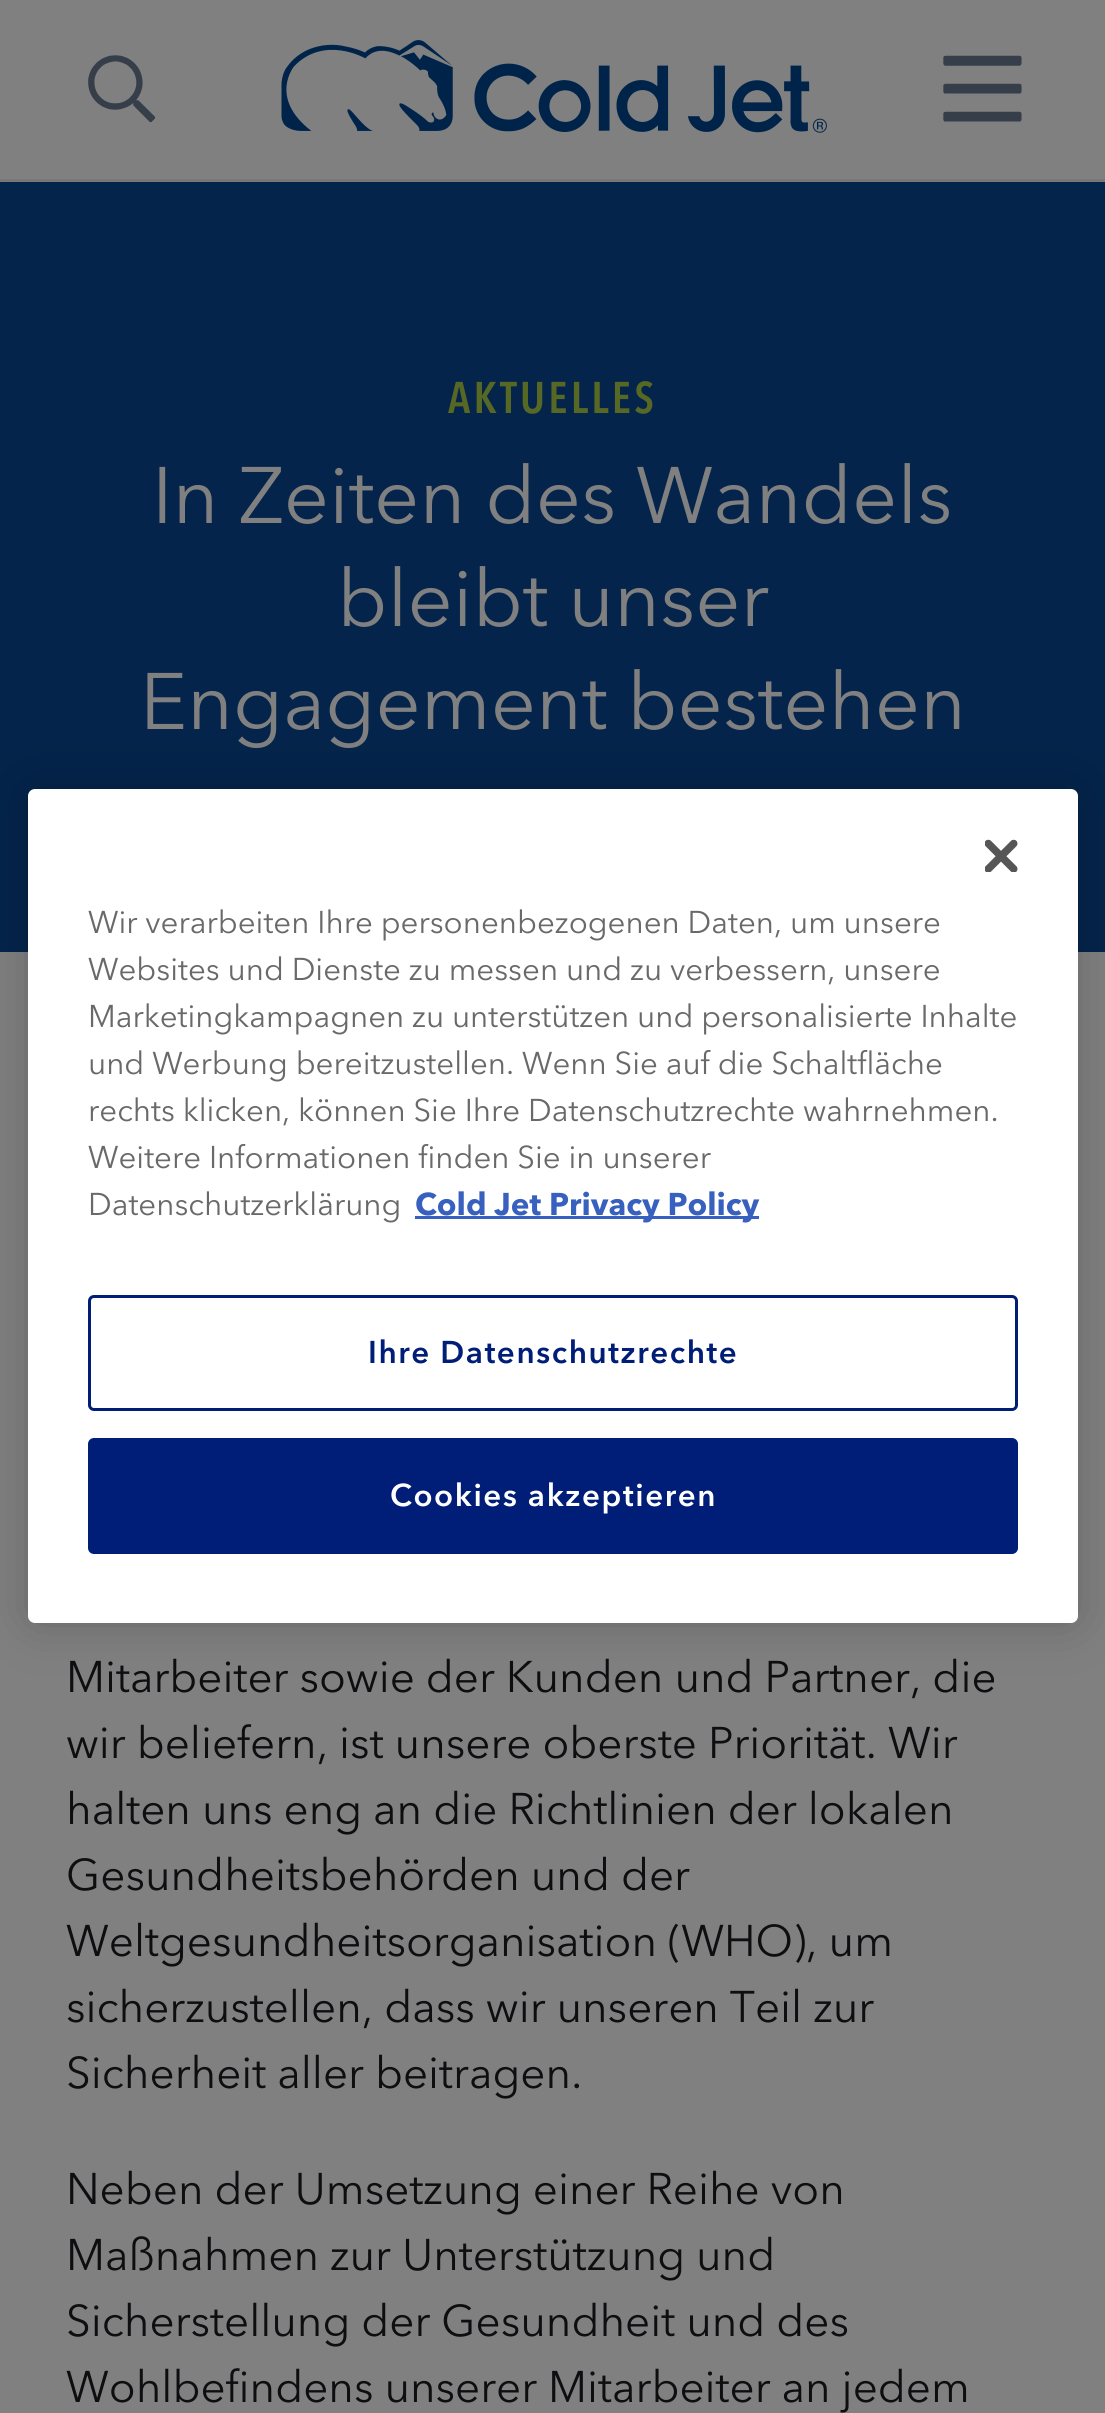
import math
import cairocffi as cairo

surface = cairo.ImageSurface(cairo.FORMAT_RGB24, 1105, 2413)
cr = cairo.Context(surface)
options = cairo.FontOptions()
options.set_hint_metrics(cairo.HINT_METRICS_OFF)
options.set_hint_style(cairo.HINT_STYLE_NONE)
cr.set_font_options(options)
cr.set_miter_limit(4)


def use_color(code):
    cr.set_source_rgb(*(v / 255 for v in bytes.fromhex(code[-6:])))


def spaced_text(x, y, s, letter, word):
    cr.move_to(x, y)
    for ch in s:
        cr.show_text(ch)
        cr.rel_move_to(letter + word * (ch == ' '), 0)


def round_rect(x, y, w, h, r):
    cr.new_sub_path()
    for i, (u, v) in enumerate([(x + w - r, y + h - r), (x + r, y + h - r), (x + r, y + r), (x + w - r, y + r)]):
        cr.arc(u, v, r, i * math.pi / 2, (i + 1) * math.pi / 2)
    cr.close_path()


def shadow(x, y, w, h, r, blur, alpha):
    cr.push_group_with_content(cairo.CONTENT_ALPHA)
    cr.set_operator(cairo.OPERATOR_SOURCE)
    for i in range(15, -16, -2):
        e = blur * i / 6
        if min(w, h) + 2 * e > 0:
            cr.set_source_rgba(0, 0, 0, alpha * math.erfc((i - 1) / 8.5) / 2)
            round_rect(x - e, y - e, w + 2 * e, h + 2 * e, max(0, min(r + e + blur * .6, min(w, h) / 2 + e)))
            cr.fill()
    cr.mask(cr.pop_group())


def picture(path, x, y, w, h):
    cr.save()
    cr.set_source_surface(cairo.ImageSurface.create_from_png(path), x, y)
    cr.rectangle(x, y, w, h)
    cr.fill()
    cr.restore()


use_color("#808080")
cr.paint()
use_color("#777777")
cr.new_path()
cr.move_to(0, 179)
cr.line_to(0, 182)
cr.line_to(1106, 182)
cr.line_to(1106, 3)
cr.line_to(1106, 179)
cr.close_path()
cr.fill()
picture("img1.png", 88, 55, 68, 68)
picture("img2.png", 281, 40, 546, 93)
picture("img3.png", 943, 55, 79, 67)
use_color("#04244b")
cr.rectangle(0, 182, 1105, 770)
cr.fill()
cr.select_font_face("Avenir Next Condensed", cairo.FONT_SLANT_NORMAL, cairo.FONT_WEIGHT_BOLD)
cr.set_font_size(44)
use_color("#576825")
spaced_text(448, 413, "AKTUELLES", 3.25, 0)
cr.select_font_face("Avenir Next")
cr.set_font_size(79.25)
use_color("#808080")
cr.move_to(152, 523)
cr.show_text("In Zeiten des Wandels")
cr.move_to(337, 626)
cr.show_text("bleibt unser")
cr.move_to(140, 729)
cr.show_text("Engagement bestehen")
cr.set_font_size(44)
use_color("#0e0e11")
cr.move_to(66, 1692)
cr.show_text("Mitarbeiter sowie der Kunden und Partner, die")
cr.move_to(66, 1758)
cr.show_text("wir beliefern, ist unsere oberste Priorität. Wir")
cr.move_to(66, 1824)
cr.show_text("halten uns eng an die Richtlinien der lokalen")
cr.move_to(66, 1890)
cr.show_text("Gesundheitsbehörden und der")
cr.move_to(66, 1956)
cr.show_text("Weltgesundheitsorganisation (WHO), um")
cr.move_to(66, 2022)
cr.show_text("sicherzustellen, dass wir unseren Teil zur")
cr.move_to(66, 2088)
cr.show_text("Sicherheit aller beitragen.")
cr.move_to(66, 2204)
cr.show_text("Neben der Umsetzung einer Reihe von")
cr.move_to(66, 2270)
cr.show_text("Maßnahmen zur Unterstützung und")
cr.move_to(66, 2336)
cr.show_text("Sicherstellung der Gesundheit und des")
cr.move_to(66, 2402)
cr.show_text("Wohlbefindens unserer Mitarbeiter an jedem")
use_color("#000000")
shadow(28, 789, 1050, 834, 7, 25, 0.2)
use_color("#ffffff")
round_rect(28, 789, 1050, 834, 7)
cr.fill()
picture("img4.png", 985, 839, 33, 33)
cr.set_font_size(31.3)
use_color("#696969")
cr.move_to(88, 933)
cr.show_text("Wir verarbeiten Ihre personenbezogenen Daten, um unsere")
cr.move_to(88, 980)
cr.show_text("Websites und Dienste zu messen und zu verbessern, unsere")
cr.move_to(88, 1027)
cr.show_text("Marketingkampagnen zu unterstützen und personalisierte Inhalte")
cr.move_to(88, 1074)
cr.show_text("und Werbung bereitzustellen. Wenn Sie auf die Schaltfläche")
cr.move_to(88, 1121)
cr.show_text("rechts klicken, können Sie Ihre Datenschutzrechte wahrnehmen.")
cr.move_to(88, 1168)
cr.show_text("Weitere Informationen finden Sie in unserer")
cr.move_to(88, 1215)
cr.show_text("Datenschutzerklärung")
use_color("#3860be")
cr.rectangle(415, 1216, 344, 3)
cr.fill()
cr.select_font_face("Avenir Next", cairo.FONT_SLANT_NORMAL, cairo.FONT_WEIGHT_BOLD)
cr.move_to(415, 1215)
cr.show_text("Cold Jet Privacy Policy")
round_rect(89.5, 1296.5, 927, 113, 4.5)
use_color("#001d77")
cr.set_line_width(3)
cr.stroke()
cr.select_font_face("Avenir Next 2", cairo.FONT_SLANT_NORMAL, cairo.FONT_WEIGHT_BOLD)
spaced_text(368, 1363, "Ihre Datenschutzrechte", 1.6, 0)
round_rect(89.5, 1439.5, 927, 113, 4.5)
cr.fill_preserve()
cr.stroke()
use_color("#ffffff")
spaced_text(390, 1506, "Cookies akzeptieren", 1.6, 0)
surface.write_to_png("result.png")
